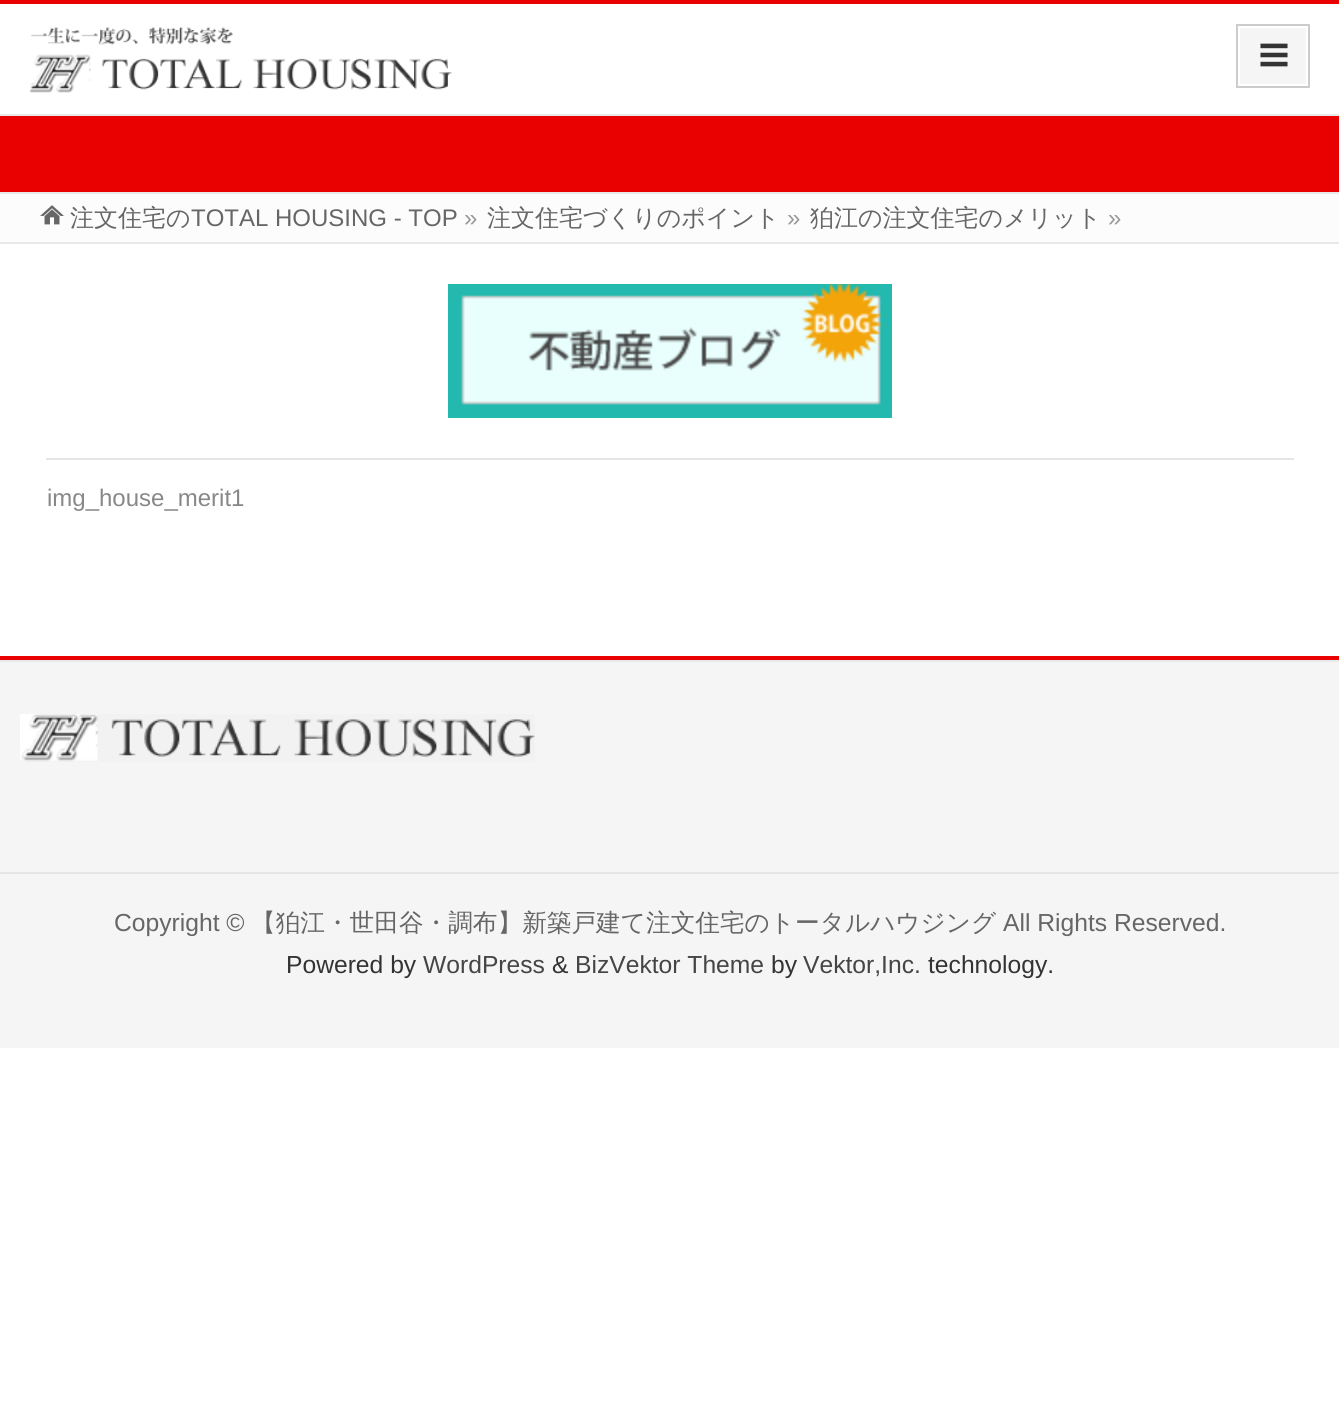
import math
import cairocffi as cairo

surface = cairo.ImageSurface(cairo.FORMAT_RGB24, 1339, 1425)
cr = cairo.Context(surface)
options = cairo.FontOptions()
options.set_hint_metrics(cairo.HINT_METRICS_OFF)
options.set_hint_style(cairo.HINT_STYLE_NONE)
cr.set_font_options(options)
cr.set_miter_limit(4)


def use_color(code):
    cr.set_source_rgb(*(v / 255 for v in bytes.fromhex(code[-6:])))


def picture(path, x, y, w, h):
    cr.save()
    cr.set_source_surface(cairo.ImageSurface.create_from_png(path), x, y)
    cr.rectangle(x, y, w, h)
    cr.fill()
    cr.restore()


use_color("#ffffff")
cr.paint()
use_color("#e90000")
cr.rectangle(0, 0, 1339, 4)
cr.fill()
picture("img1.png", 30, 27, 422, 66)
use_color("#f5f5f5")
cr.rectangle(1240, 28, 66, 56)
cr.fill()
cr.rectangle(1237, 25, 72, 62)
use_color("#cccccc")
cr.stroke()
picture("img2.png", 1260, 43, 28, 24)
use_color("#e90000")
cr.rectangle(0, 116, 1339, 76)
cr.fill()
use_color("#e9e9e9")
cr.rectangle(0, 114, 1339, 2)
cr.fill()
cr.rectangle(0, 192, 1339, 2)
cr.fill()
use_color("#fcfcfc")
cr.rectangle(0, 194, 1339, 48)
cr.fill()
picture("img3.png", 40, 205, 24, 20)
cr.select_font_face("WenQuanYi Zen Hei Medium")
cr.set_font_size(24)
use_color("#666666")
cr.move_to(70, 226)
cr.show_text("注文住宅の")
cr.select_font_face("Liberation Sans")
cr.move_to(191, 226)
cr.show_text("TOTAL HOUSING - TOP")
use_color("#999999")
cr.move_to(464, 226)
cr.show_text("»")
cr.select_font_face("WenQuanYi Zen Hei Medium")
use_color("#666666")
cr.move_to(487, 226)
cr.show_text("注文住宅づくりのポイント")
cr.select_font_face("Liberation Sans")
use_color("#999999")
cr.move_to(787, 226)
cr.show_text("»")
cr.select_font_face("WenQuanYi Zen Hei Medium")
use_color("#666666")
cr.move_to(810, 226)
cr.show_text("狛江の注文住宅のメリット")
cr.select_font_face("Liberation Sans")
use_color("#999999")
cr.move_to(1108, 226)
cr.show_text("»")
use_color("#e9e9e9")
cr.rectangle(0, 242, 1339, 2)
cr.fill()
picture("img4.png", 448, 284, 444, 134)
use_color("#e5e5e5")
cr.rectangle(46, 458, 1248, 2)
cr.fill()
use_color("#888888")
cr.move_to(47, 506)
cr.show_text("img_house_merit1")
use_color("#e90000")
cr.rectangle(0, 656, 1339, 4)
cr.fill()
use_color("#e9e9e9")
cr.rectangle(0, 660, 1339, 2)
cr.fill()
use_color("#f5f5f5")
cr.rectangle(0, 662, 1339, 210)
cr.fill()
picture("img5.png", 20, 714, 515, 48)
cr.rectangle(0, 874, 1339, 174)
cr.fill()
use_color("#e5e5e5")
cr.rectangle(0, 872, 1339, 2)
cr.fill()
cr.set_font_size(24.65)
use_color("#666666")
cr.move_to(114, 931)
cr.show_text("Copyright ©")
cr.select_font_face("WenQuanYi Zen Hei Medium")
cr.move_to(251, 931)
cr.show_text("【狛江・世田谷・調布】新築戸建て注文住宅のトータルハウジング")
cr.select_font_face("Liberation Sans")
cr.move_to(1003, 931)
cr.show_text("All Rights Reserved.")
use_color("#333333")
cr.move_to(286, 973)
cr.show_text("Powered by")
use_color("#454545")
cr.move_to(423, 973)
cr.show_text("WordPress")
use_color("#333333")
cr.move_to(552, 973)
cr.show_text("&")
use_color("#454545")
cr.move_to(575, 973)
cr.show_text("BizVektor Theme")
use_color("#333333")
cr.move_to(771, 973)
cr.show_text("by")
use_color("#454545")
cr.move_to(803, 973)
cr.show_text("Vektor,Inc.")
use_color("#333333")
cr.move_to(928, 973)
cr.show_text("technology.")
surface.write_to_png("result.png")
